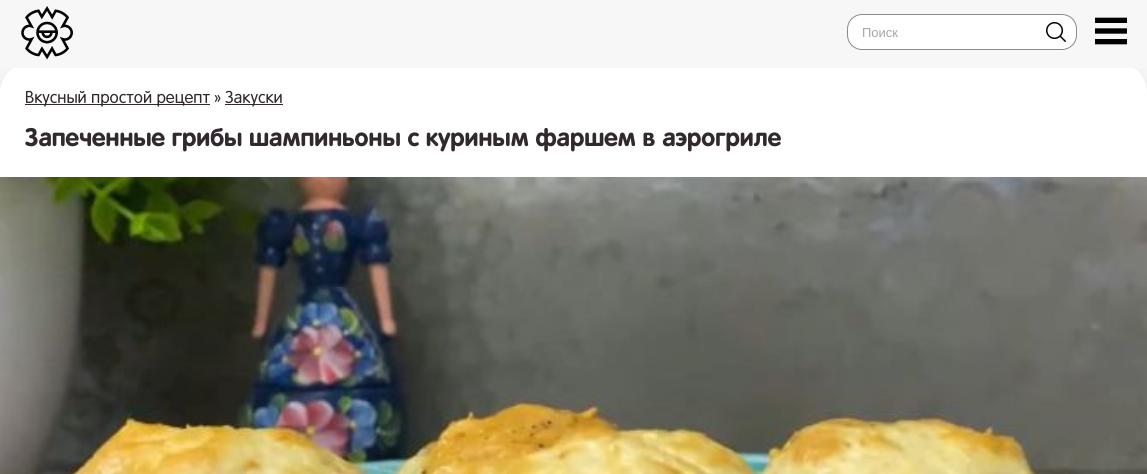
import math
import cairocffi as cairo

surface = cairo.ImageSurface(cairo.FORMAT_RGB24, 1147, 474)
cr = cairo.Context(surface)
options = cairo.FontOptions()
options.set_hint_metrics(cairo.HINT_METRICS_OFF)
options.set_hint_style(cairo.HINT_STYLE_NONE)
cr.set_font_options(options)
cr.set_miter_limit(4)


def use_color(code):
    cr.set_source_rgb(*(v / 255 for v in bytes.fromhex(code[-6:])))


def round_rect(x, y, w, h, r):
    cr.new_sub_path()
    for i, (u, v) in enumerate([(x + w - r, y + h - r), (x + r, y + h - r), (x + r, y + r), (x + w - r, y + r)]):
        cr.arc(u, v, r, i * math.pi / 2, (i + 1) * math.pi / 2)
    cr.close_path()


def shadow(x, y, w, h, r, blur, alpha):
    cr.push_group_with_content(cairo.CONTENT_ALPHA)
    cr.set_operator(cairo.OPERATOR_SOURCE)
    for i in range(15, -16, -2):
        e = blur * i / 6
        if min(w, h) + 2 * e > 0:
            cr.set_source_rgba(0, 0, 0, alpha * math.erfc((i - 1) / 8.5) / 2)
            round_rect(x - e, y - e, w + 2 * e, h + 2 * e, max(0, min(r + e + blur * .6, min(w, h) / 2 + e)))
            cr.fill()
    cr.mask(cr.pop_group())


def picture(path, x, y, w, h):
    cr.save()
    cr.set_source_surface(cairo.ImageSurface.create_from_png(path), x, y)
    cr.rectangle(x, y, w, h)
    cr.fill()
    cr.restore()


use_color("#f7f7f7")
cr.paint()
picture("img1.png", 21, 6, 52, 54)
use_color("#ffffff")
round_rect(847.5, 14.5, 229, 35, 14.5)
cr.fill_preserve()
use_color("#8b8b8b")
cr.set_line_width(1)
cr.stroke()
cr.select_font_face("Liberation Sans")
cr.set_font_size(13)
use_color("#a5a5a5")
cr.move_to(862, 37)
cr.show_text("Поиск")
picture("img2.png", 1046, 22, 20, 20)
picture("img3.png", 1095, 17, 32, 28)
cr.save()
cr.rectangle(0, 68, 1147, 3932)
cr.clip()
use_color("#cfcfcf")
shadow(0, 75, 1147, 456, 30, 9, 1)
cr.restore()
cr.save()
cr.rectangle(0, 68, 1147, 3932)
cr.clip()
use_color("#ffffff")
round_rect(0, 63, 1147, 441, 30)
cr.fill()
cr.restore()
use_color("#32292f")
cr.rectangle(25, 104, 185, 1)
cr.fill()
cr.select_font_face("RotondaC")
cr.set_font_size(17)
cr.move_to(25, 103)
cr.show_text("Вкусный простой рецепт »")
cr.rectangle(225, 104, 58, 1)
cr.fill()
cr.move_to(225, 103)
cr.show_text("Закуски")
cr.select_font_face("RotondaC", cairo.FONT_SLANT_NORMAL, cairo.FONT_WEIGHT_BOLD)
cr.set_font_size(25)
cr.move_to(25, 146)
cr.show_text("Запеченные грибы шампиньоны с куриным фаршем в аэрогриле")
picture("img4.png", 0, 177, 1147, 297)
surface.write_to_png("result.png")
